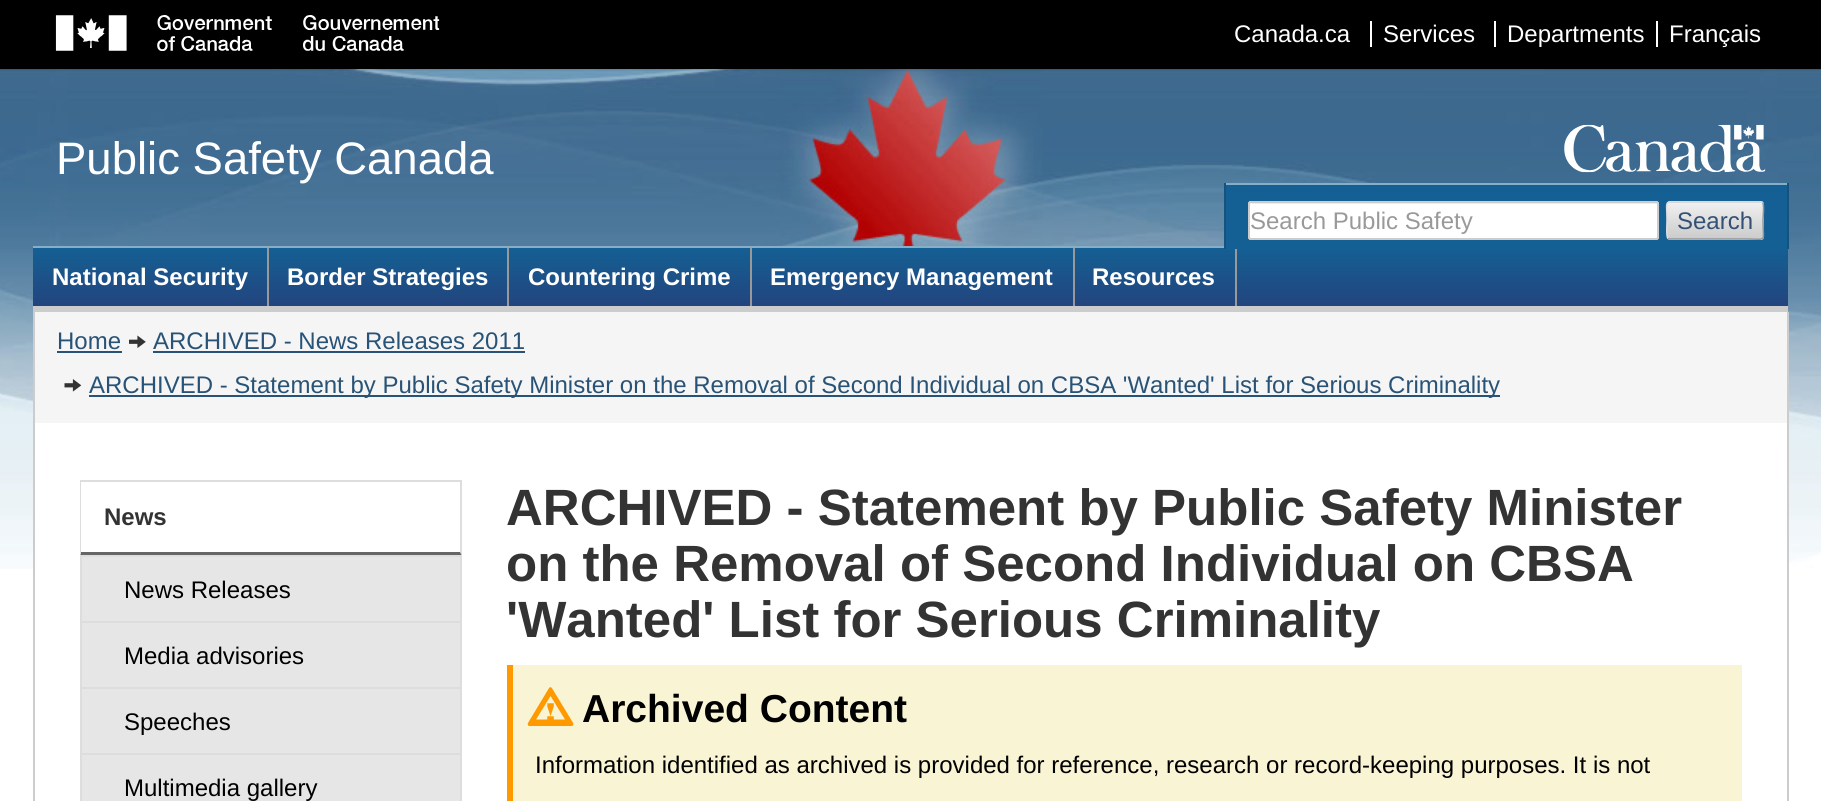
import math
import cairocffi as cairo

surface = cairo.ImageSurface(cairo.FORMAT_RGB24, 1821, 801)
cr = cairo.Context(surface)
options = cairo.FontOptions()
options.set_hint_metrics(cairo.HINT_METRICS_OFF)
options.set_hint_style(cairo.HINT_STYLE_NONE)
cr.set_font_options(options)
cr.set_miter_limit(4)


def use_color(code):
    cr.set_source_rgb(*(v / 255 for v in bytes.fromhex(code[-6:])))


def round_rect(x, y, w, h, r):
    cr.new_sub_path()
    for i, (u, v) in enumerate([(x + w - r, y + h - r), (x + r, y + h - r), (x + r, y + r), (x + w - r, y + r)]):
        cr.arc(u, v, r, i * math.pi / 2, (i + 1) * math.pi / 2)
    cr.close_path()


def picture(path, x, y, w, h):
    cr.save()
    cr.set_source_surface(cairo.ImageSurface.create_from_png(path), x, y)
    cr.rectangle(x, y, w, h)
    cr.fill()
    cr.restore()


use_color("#ffffff")
cr.paint()
picture("img1.png", 0, 69, 1821, 500)
use_color("#000000")
cr.rectangle(0, 0, 1821, 69)
cr.fill()
picture("img2.png", 55, 15, 385, 36)
cr.select_font_face("Liberation Sans")
cr.set_font_size(24)
use_color("#ffffff")
cr.move_to(1234, 42)
cr.show_text("Canada.ca")
cr.move_to(1383, 42)
cr.show_text("Services")
cr.rectangle(1370, 21, 2, 26)
cr.fill()
cr.move_to(1507, 42)
cr.show_text("Departments")
cr.rectangle(1494, 21, 2, 26)
cr.fill()
cr.move_to(1669, 42)
cr.show_text("Français")
cr.rectangle(1656, 21, 2, 26)
cr.fill()
cr.set_font_size(45.5)
cr.move_to(56, 174)
cr.show_text("Public Safety Canada")
picture("img3.png", 1564, 124, 202, 49)
gradient = cairo.LinearGradient(911, 247, 911, 306)
gradient.add_color_stop_rgba(0, 0.078, 0.376, 0.58, 1)
gradient.add_color_stop_rgba(1, 0.137, 0.267, 0.494, 1)
cr.set_source(gradient)
cr.rectangle(33, 248, 1755, 58)
cr.fill()
use_color("#999999")
cr.rectangle(1235, 248, 2, 58)
cr.fill()
use_color("#146094")
cr.rectangle(1226, 185, 561, 64)
cr.fill()
use_color("#87aec9")
cr.rectangle(1224, 183, 564, 2)
cr.fill()
use_color("#15527d")
cr.rectangle(1787, 183, 2, 66)
cr.fill()
cr.rectangle(1224, 183, 2, 66)
cr.fill()
use_color("#ffffff")
round_rect(1248, 201, 411, 39, 3)
cr.fill()
use_color("#ececec")
cr.new_path()
cr.move_to(1251, 204)
cr.line_to(1656, 204)
cr.curve_to(1657, 204, 1658, 205, 1658, 206)
cr.curve_to(1658, 205, 1658, 203, 1656, 203)
cr.line_to(1252, 203)
cr.line_to(1250, 204)
cr.line_to(1250, 206)
cr.curve_to(1250, 205, 1250, 204, 1251, 204)
cr.close_path()
cr.fill()
round_rect(1249, 202, 409, 37, 2)
use_color("#cccccc")
cr.stroke()
cr.set_font_size(24)
use_color("#999999")
cr.move_to(1250, 229)
cr.show_text("Search Public Safety")
cr.save()
round_rect(1667, 201, 97, 39, 3)
cr.clip()
gradient = cairo.LinearGradient(1715, 167, 1715, 203)
gradient.add_color_stop_rgba(0, 0.941, 0.941, 0.941, 1)
gradient.add_color_stop_rgba(1, 0.8, 0.8, 0.8, 1)
cr.set_source(gradient)
cr.rectangle(1667, 201, 97, 2)
cr.fill()
gradient = cairo.LinearGradient(1715, 203, 1715, 239)
gradient.add_color_stop_rgba(0, 0.941, 0.941, 0.941, 1)
gradient.add_color_stop_rgba(1, 0.8, 0.8, 0.8, 1)
cr.set_source(gradient)
cr.rectangle(1667, 203, 97, 36)
cr.fill()
gradient = cairo.LinearGradient(1715, 239, 1715, 275)
gradient.add_color_stop_rgba(0, 0.941, 0.941, 0.941, 1)
gradient.add_color_stop_rgba(1, 0.8, 0.8, 0.8, 1)
cr.set_source(gradient)
cr.rectangle(1667, 239, 97, 1)
cr.fill()
cr.restore()
cr.new_path()
cr.move_to(1762.5, 202.5)
cr.curve_to(1764.5, 204, 1763, 217.5, 1763, 220.5)
cr.curve_to(1763, 243, 1768, 239, 1746, 239)
cr.line_to(1669.5, 239)
cr.line_to(1668, 238.5)
use_color("#939496")
cr.set_line_width(1.5)
cr.stroke()
cr.new_path()
cr.move_to(1668, 238.5)
cr.curve_to(1666, 237, 1667, 223.5, 1667, 220.5)
cr.curve_to(1667, 198, 1662.5, 202, 1685, 202)
cr.line_to(1761, 202)
cr.line_to(1762.5, 202.5)
use_color("#dcdee1")
cr.stroke()
use_color("#335075")
cr.move_to(1677, 229)
cr.show_text("Search")
use_color("#87aec9")
cr.rectangle(33, 246, 1191, 2)
cr.fill()
use_color("#cccccc")
cr.rectangle(33, 306, 1755, 6)
cr.fill()
use_color("#999999")
cr.rectangle(267, 248, 2, 58)
cr.fill()
cr.select_font_face("Liberation Sans", cairo.FONT_SLANT_NORMAL, cairo.FONT_WEIGHT_BOLD)
use_color("#ffffff")
cr.move_to(52, 285)
cr.show_text("National Security")
use_color("#999999")
cr.rectangle(507, 248, 2, 58)
cr.fill()
use_color("#ffffff")
cr.move_to(287, 285)
cr.show_text("Border Strategies")
use_color("#999999")
cr.rectangle(750, 248, 2, 58)
cr.fill()
use_color("#ffffff")
cr.move_to(528, 285)
cr.show_text("Countering Crime")
use_color("#999999")
cr.rectangle(1073, 248, 2, 58)
cr.fill()
use_color("#ffffff")
cr.move_to(770, 285)
cr.show_text("Emergency Management")
cr.move_to(1092, 285)
cr.show_text("Resources")
use_color("#cccccc")
cr.rectangle(1787, 312, 2, 489)
cr.fill()
cr.rectangle(33, 312, 2, 489)
cr.fill()
use_color("#f5f5f5")
cr.rectangle(35, 312, 1752, 111)
cr.fill()
cr.select_font_face("Liberation Sans")
use_color("#295376")
cr.move_to(57, 349)
cr.show_text("Home")
cr.rectangle(57, 351, 65, 2)
cr.fill()
picture("img4.png", 129, 335, 17, 13)
cr.move_to(153, 349)
cr.show_text("ARCHIVED - News Releases 2011")
cr.rectangle(153, 351, 372, 2)
cr.fill()
picture("img5.png", 64, 379, 18, 13)
cr.rectangle(89, 395, 1411, 2)
cr.fill()
cr.move_to(89, 393)
cr.show_text("ARCHIVED - Statement by Public Safety Minister on the Removal of Second Individual on CBSA 'Wanted' List for Serious Criminality")
use_color("#ffffff")
cr.rectangle(35, 423, 1752, 146)
cr.fill()
use_color("#dddddd")
cr.rectangle(80, 480, 382, 2)
cr.fill()
cr.new_path()
cr.move_to(462, 480)
cr.line_to(462, 556)
cr.line_to(460, 552)
cr.line_to(460, 482)
cr.close_path()
cr.fill()
use_color("#666666")
cr.new_path()
cr.move_to(462, 556)
cr.line_to(80, 556)
cr.line_to(81, 552)
cr.line_to(460, 552)
cr.close_path()
cr.fill()
use_color("#dddddd")
cr.new_path()
cr.move_to(80, 556)
cr.line_to(80, 480)
cr.line_to(81, 482)
cr.line_to(81, 552)
cr.close_path()
cr.fill()
cr.select_font_face("Liberation Sans", cairo.FONT_SLANT_NORMAL, cairo.FONT_WEIGHT_BOLD)
use_color("#333333")
cr.move_to(104, 525)
cr.show_text("News")
use_color("#e6e6e6")
cr.rectangle(81, 556, 380, 66)
cr.fill_preserve()
use_color("#dddddd")
cr.set_line_width(2)
cr.stroke()
cr.select_font_face("Liberation Sans")
use_color("#000000")
cr.move_to(124, 598)
cr.show_text("News Releases")
use_color("#e6e6e6")
cr.rectangle(81, 622, 380, 66)
cr.fill_preserve()
use_color("#dddddd")
cr.stroke()
use_color("#000000")
cr.move_to(124, 664)
cr.show_text("Media advisories")
use_color("#e6e6e6")
cr.rectangle(81, 688, 380, 66)
cr.fill_preserve()
use_color("#dddddd")
cr.stroke()
use_color("#000000")
cr.move_to(124, 730)
cr.show_text("Speeches")
use_color("#e6e6e6")
cr.rectangle(81, 754, 380, 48)
cr.fill_preserve()
use_color("#dddddd")
cr.stroke()
use_color("#000000")
cr.move_to(124, 796)
cr.show_text("Multimedia gallery")
cr.select_font_face("Liberation Sans", cairo.FONT_SLANT_NORMAL, cairo.FONT_WEIGHT_BOLD)
cr.set_font_size(51)
use_color("#333333")
cr.move_to(506, 525)
cr.show_text("ARCHIVED - Statement by Public Safety Minister")
cr.move_to(506, 581)
cr.show_text("on the Removal of Second Individual on CBSA")
cr.move_to(506, 637)
cr.show_text("'Wanted' List for Serious Criminality")
use_color("#f9f4d4")
cr.rectangle(513, 665, 1229, 136)
cr.fill()
use_color("#ff9900")
cr.rectangle(507, 665, 6, 136)
cr.fill()
picture("img6.png", 527, 687, 47, 39)
cr.set_font_size(39)
use_color("#000000")
cr.move_to(582, 722)
cr.show_text("Archived Content")
cr.select_font_face("Liberation Sans")
cr.set_font_size(24)
cr.move_to(535, 773)
cr.show_text("Information identified as archived is provided for reference, research or record-keeping purposes. It is not")
surface.write_to_png("result.png")
